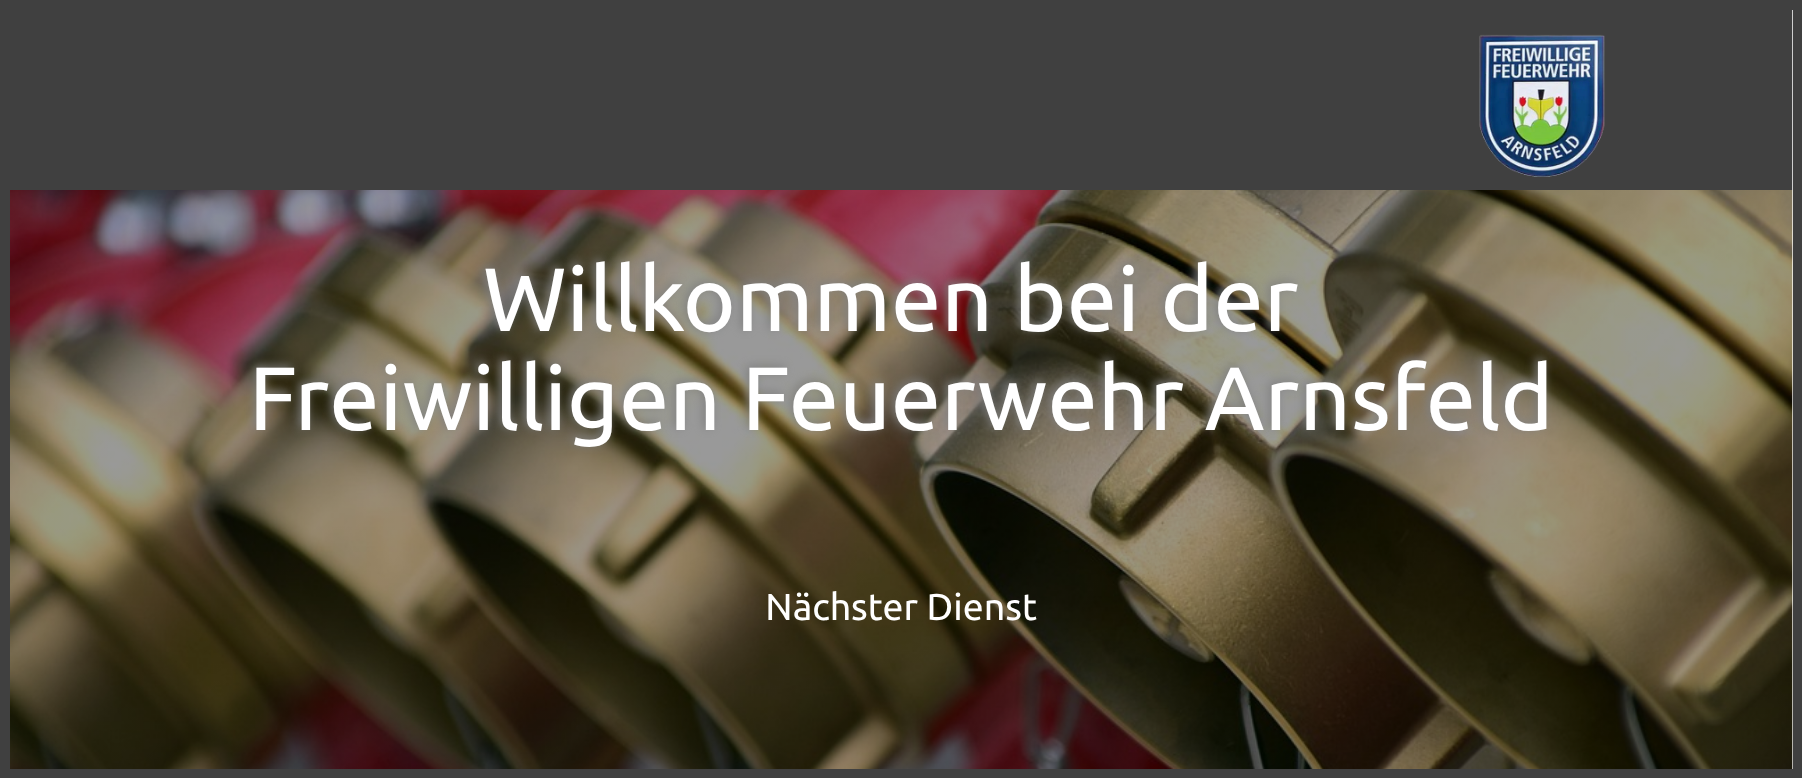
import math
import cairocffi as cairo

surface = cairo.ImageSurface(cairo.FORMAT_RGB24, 1802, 778)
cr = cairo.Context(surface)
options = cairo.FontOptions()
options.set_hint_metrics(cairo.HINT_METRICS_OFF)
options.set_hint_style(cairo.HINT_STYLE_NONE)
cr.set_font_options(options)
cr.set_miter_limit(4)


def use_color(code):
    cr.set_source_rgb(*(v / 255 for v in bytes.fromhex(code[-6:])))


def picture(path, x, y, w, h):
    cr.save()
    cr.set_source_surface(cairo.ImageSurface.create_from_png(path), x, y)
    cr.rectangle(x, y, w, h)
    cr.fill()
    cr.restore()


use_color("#404040")
cr.paint()
picture("img1.png", 10, 10, 1783, 759)
surface.write_to_png("result.png")
